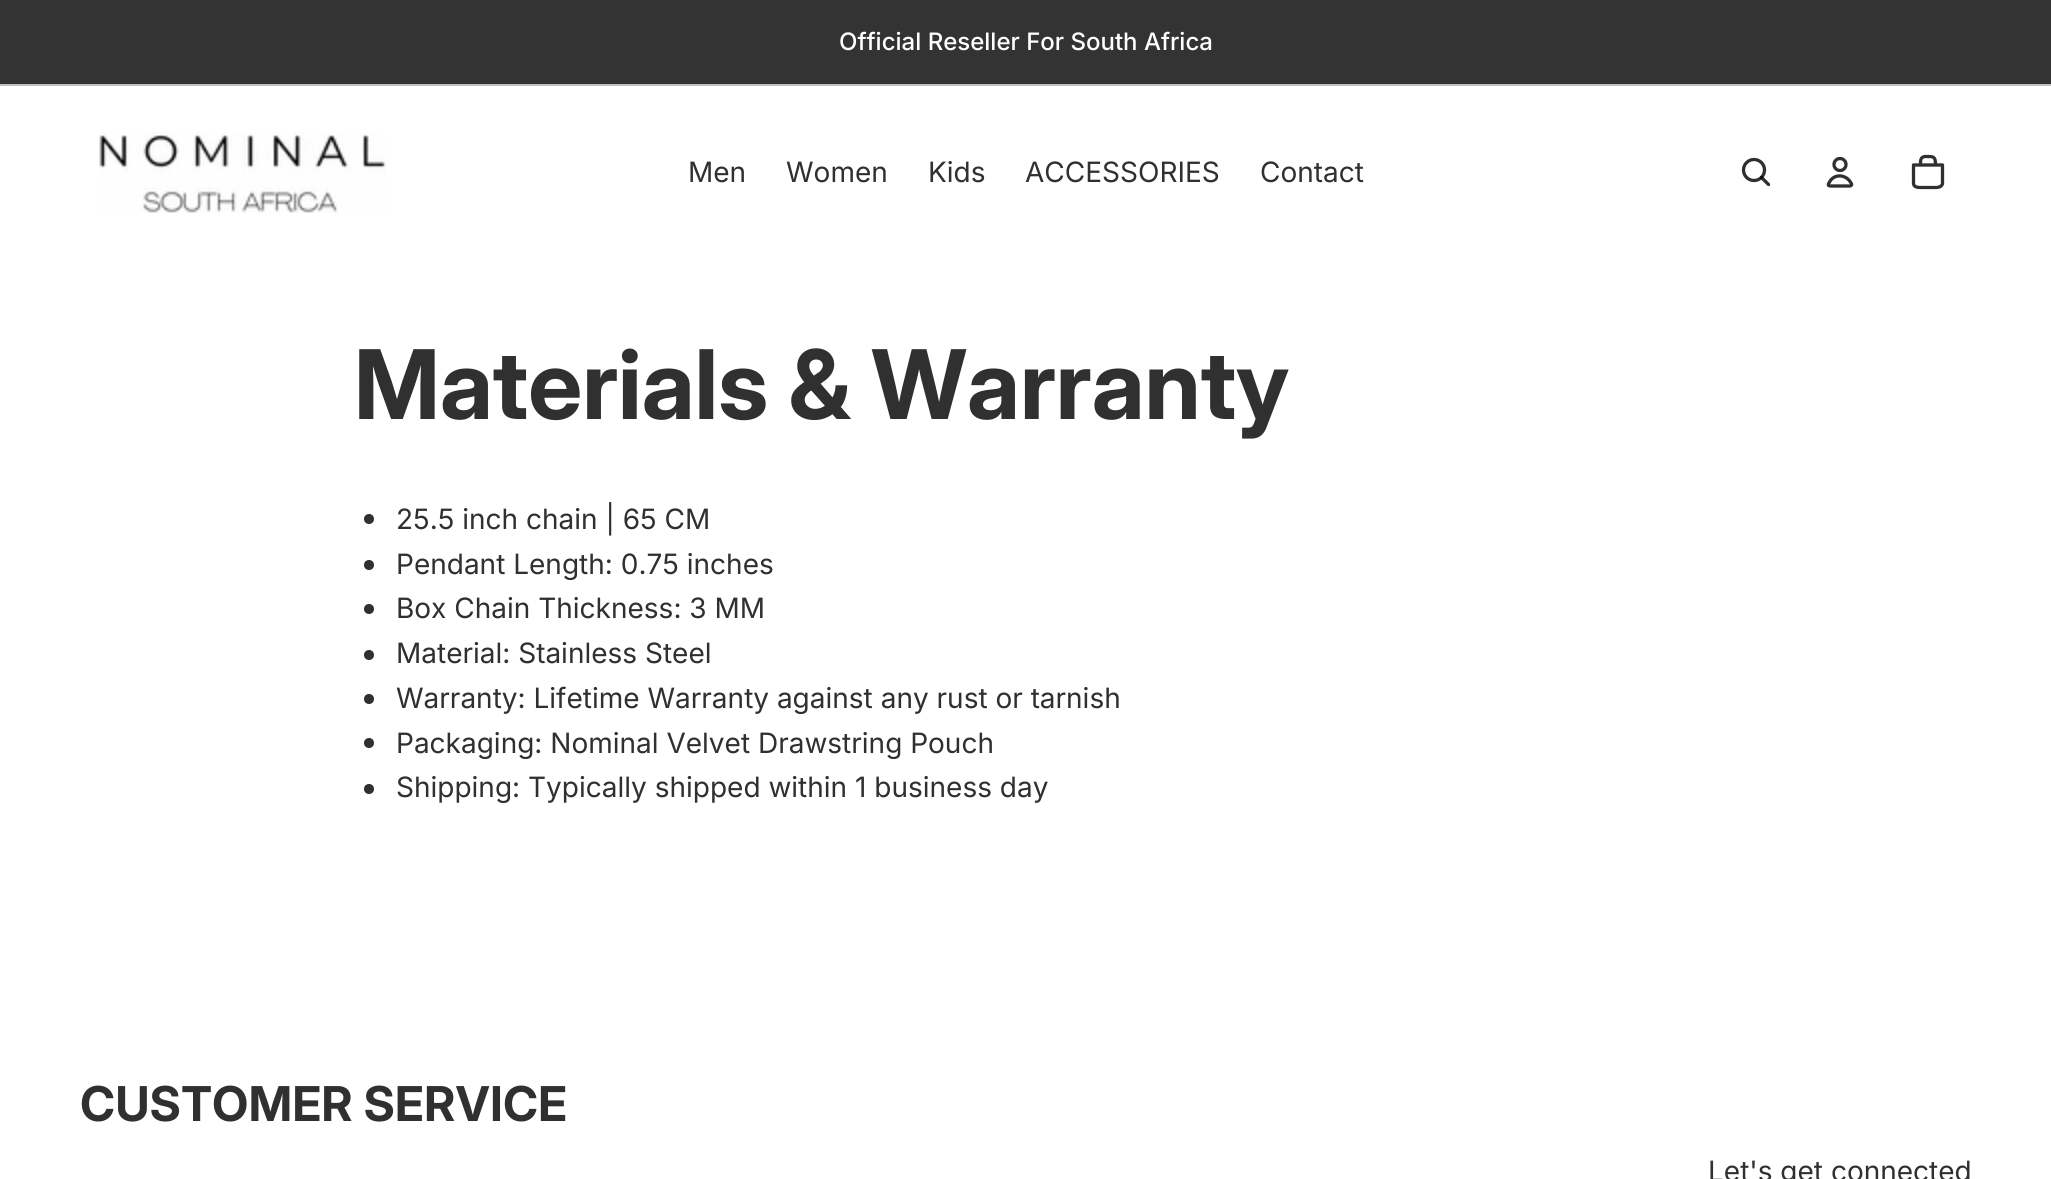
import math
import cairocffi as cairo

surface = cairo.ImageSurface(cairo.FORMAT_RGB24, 2051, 1179)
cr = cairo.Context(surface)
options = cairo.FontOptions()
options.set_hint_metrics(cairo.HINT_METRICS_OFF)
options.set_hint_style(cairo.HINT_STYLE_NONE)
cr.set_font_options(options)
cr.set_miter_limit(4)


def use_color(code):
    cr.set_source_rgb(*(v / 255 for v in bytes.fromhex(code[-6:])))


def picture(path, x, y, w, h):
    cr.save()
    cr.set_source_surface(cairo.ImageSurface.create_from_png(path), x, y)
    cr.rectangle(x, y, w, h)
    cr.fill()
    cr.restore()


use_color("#ffffff")
cr.paint()
use_color("#333333")
cr.rectangle(0, 0, 2051, 84)
cr.fill()
use_color("#c0c0c0")
cr.rectangle(0, 84, 2051, 2)
cr.fill()
cr.select_font_face("Inter Medium")
cr.set_font_size(24)
use_color("#ffffff")
cr.move_to(839, 50)
cr.show_text("Official Reseller For South Africa")
picture("img1.png", 99, 132, 287, 81)
cr.select_font_face("Inter")
cr.set_font_size(28)
use_color("#303030")
cr.move_to(688, 182)
cr.show_text("Men")
cr.move_to(786, 182)
cr.show_text("Women")
cr.move_to(928, 182)
cr.show_text("Kids")
cr.move_to(1025, 182)
cr.show_text("ACCESSORIES")
cr.move_to(1260, 182)
cr.show_text("Contact")
cr.new_path()
cr.arc(1754, 170, 10.5, 0, 2 * math.pi)
cr.set_line_width(3.3)
cr.stroke()
cr.new_path()
cr.move_to(1761.5, 177.5)
cr.line_to(1768.5, 184.5)
cr.set_source_rgba(0, 0, 0, 0.81)
cr.set_line_cap(cairo.LINE_CAP_ROUND)
cr.set_line_join(cairo.LINE_JOIN_ROUND)
cr.stroke()
cr.arc(1840, 164.5, 6, 0, 2 * math.pi)
use_color("#303030")
cr.set_line_cap(cairo.LINE_CAP_BUTT)
cr.set_line_join(cairo.LINE_JOIN_MITER)
cr.stroke()
cr.new_path()
cr.move_to(1829.5, 182)
cr.curve_to(1827, 186, 1828.5, 186, 1833, 186)
cr.line_to(1847, 186)
cr.curve_to(1847.5, 186, 1851, 186.5, 1851.5, 185)
cr.curve_to(1852, 184.5, 1851.5, 183.5, 1851, 183)
cr.curve_to(1846.5, 174.5, 1834.5, 173, 1829.5, 182)
cr.set_line_cap(cairo.LINE_CAP_ROUND)
cr.set_line_join(cairo.LINE_JOIN_ROUND)
cr.stroke()
cr.new_path()
cr.move_to(1913.5, 165)
cr.line_to(1942.5, 165)
cr.line_to(1942.5, 184)
cr.curve_to(1941, 187.5, 1937.5, 187.5, 1934.5, 187.5)
cr.line_to(1921.5, 187.5)
cr.curve_to(1918, 187.5, 1913.5, 187.5, 1913.5, 183)
cr.close_path()
cr.move_to(1925.5, 156.5)
cr.curve_to(1933.5, 156.5, 1935.5, 156, 1935.5, 165)
cr.line_to(1920.5, 165)
cr.curve_to(1920.5, 161.5, 1920, 156.5, 1925.5, 156.5)
cr.stroke()
cr.select_font_face("Inter", cairo.FONT_SLANT_NORMAL, cairo.FONT_WEIGHT_BOLD)
cr.set_font_size(96)
cr.move_to(354, 419)
cr.show_text("Materials & Warranty")
cr.new_path()
cr.arc(369, 519, 5, 0, 2 * math.pi)
cr.fill()
cr.select_font_face("Inter")
cr.set_font_size(28)
cr.move_to(396, 529)
cr.show_text("25.5 inch chain | 65 CM")
cr.new_path()
cr.arc(369, 565, 5, 0, 2 * math.pi)
cr.fill()
cr.move_to(396, 574)
cr.show_text("Pendant Length: 0.75 inches")
cr.new_path()
cr.arc(369, 609, 5, 0, 2 * math.pi)
cr.fill()
cr.move_to(396, 618)
cr.show_text("Box Chain Thickness: 3 MM")
cr.new_path()
cr.arc(369, 655, 5, 0, 2 * math.pi)
cr.fill()
cr.move_to(396, 663)
cr.show_text("Material: Stainless Steel")
cr.new_path()
cr.arc(369, 699, 5, 0, 2 * math.pi)
cr.fill()
cr.move_to(396, 708)
cr.show_text("Warranty: Lifetime Warranty against any rust or tarnish")
cr.new_path()
cr.arc(369, 743, 5, 0, 2 * math.pi)
cr.fill()
cr.move_to(396, 753)
cr.show_text("Packaging: Nominal Velvet Drawstring Pouch")
cr.new_path()
cr.arc(369, 789, 5, 0, 2 * math.pi)
cr.fill()
cr.move_to(396, 797)
cr.show_text("Shipping: Typically shipped within 1 business day")
cr.select_font_face("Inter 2", cairo.FONT_SLANT_NORMAL, cairo.FONT_WEIGHT_BOLD)
cr.set_font_size(48)
cr.move_to(80, 1121)
cr.show_text("CUSTOMER SERVICE")
cr.select_font_face("Inter")
cr.set_font_size(28)
cr.move_to(1708, 1181)
cr.show_text("Let's get connected")
surface.write_to_png("result.png")
